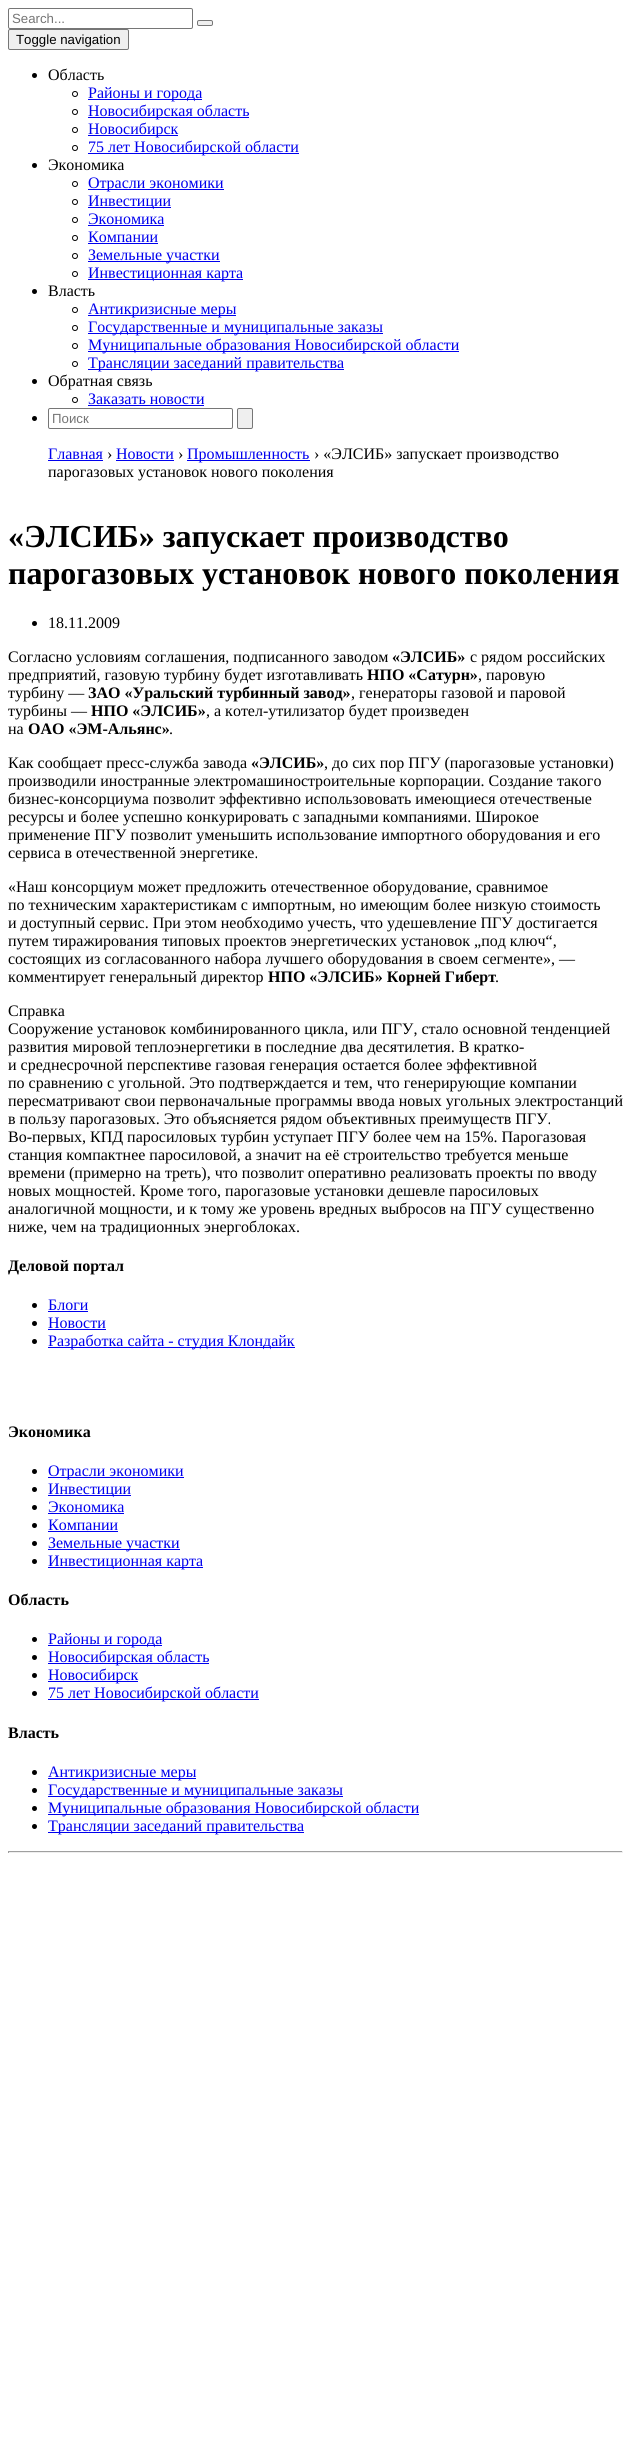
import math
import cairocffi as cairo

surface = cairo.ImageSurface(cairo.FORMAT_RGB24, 631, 2449)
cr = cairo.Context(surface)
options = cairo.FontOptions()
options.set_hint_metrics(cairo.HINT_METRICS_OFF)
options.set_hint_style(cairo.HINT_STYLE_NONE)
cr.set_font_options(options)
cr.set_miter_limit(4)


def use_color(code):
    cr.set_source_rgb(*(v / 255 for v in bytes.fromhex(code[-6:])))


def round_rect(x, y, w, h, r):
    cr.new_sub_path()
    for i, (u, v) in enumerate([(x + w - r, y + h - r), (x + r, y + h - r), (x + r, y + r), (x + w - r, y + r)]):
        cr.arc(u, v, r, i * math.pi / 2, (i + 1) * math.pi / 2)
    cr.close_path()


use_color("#ffffff")
cr.paint()
round_rect(8.5, 8.5, 184, 20, 1.5)
use_color("#767676")
cr.set_line_width(1)
cr.stroke()
cr.select_font_face("Liberation Sans")
cr.set_font_size(13.25)
use_color("#757575")
cr.move_to(12, 23)
cr.show_text("Search...")
use_color("#efefef")
round_rect(197.5, 20.5, 15, 5, 1.5)
cr.fill_preserve()
use_color("#767676")
cr.stroke()
use_color("#efefef")
round_rect(8.5, 29.5, 120, 20, 1.5)
cr.fill_preserve()
use_color("#767676")
cr.stroke()
use_color("#000000")
cr.move_to(16, 44)
cr.show_text("Toggle navigation")
cr.new_path()
cr.arc(34.5, 75.5, 2.5, 0, 2 * math.pi)
cr.fill()
cr.select_font_face("Liberation Serif")
cr.set_font_size(16)
cr.move_to(48, 80)
cr.show_text("Область")
cr.new_path()
cr.arc(75, 94, 2.5, 0, 2 * math.pi)
cr.stroke()
use_color("#0000ee")
cr.rectangle(88, 99, 114, 1)
cr.fill()
cr.move_to(88, 98)
cr.show_text("Районы и города")
cr.new_path()
cr.arc(75, 112, 2.5, 0, 2 * math.pi)
use_color("#000000")
cr.stroke()
use_color("#0000ee")
cr.rectangle(88, 117, 161, 1)
cr.fill()
cr.move_to(88, 116)
cr.show_text("Новосибирская область")
cr.new_path()
cr.arc(75, 130, 2.5, 0, 2 * math.pi)
use_color("#000000")
cr.stroke()
use_color("#0000ee")
cr.rectangle(88, 135, 90, 1)
cr.fill()
cr.move_to(88, 134)
cr.show_text("Новосибирск")
cr.new_path()
cr.arc(75, 148, 2.5, 0, 2 * math.pi)
use_color("#000000")
cr.stroke()
use_color("#0000ee")
cr.rectangle(88, 153, 211, 1)
cr.fill()
cr.move_to(88, 152)
cr.show_text("75 лет Новосибирской области")
use_color("#000000")
cr.new_path()
cr.arc(34.5, 165.5, 2.5, 0, 2 * math.pi)
cr.fill()
cr.move_to(48, 170)
cr.show_text("Экономика")
cr.new_path()
cr.arc(75, 184, 2.5, 0, 2 * math.pi)
cr.stroke()
use_color("#0000ee")
cr.rectangle(88, 189, 136, 1)
cr.fill()
cr.move_to(88, 188)
cr.show_text("Отрасли экономики")
cr.new_path()
cr.arc(75, 202, 2.5, 0, 2 * math.pi)
use_color("#000000")
cr.stroke()
use_color("#0000ee")
cr.rectangle(88, 207, 83, 1)
cr.fill()
cr.move_to(88, 206)
cr.show_text("Инвестиции")
cr.new_path()
cr.arc(75, 220, 2.5, 0, 2 * math.pi)
use_color("#000000")
cr.stroke()
use_color("#0000ee")
cr.move_to(88, 224)
cr.show_text("Экономика")
cr.rectangle(88, 225, 76, 1)
cr.fill()
cr.arc(75, 238, 2.5, 0, 2 * math.pi)
use_color("#000000")
cr.stroke()
use_color("#0000ee")
cr.move_to(88, 242)
cr.show_text("Компании")
cr.rectangle(88, 243, 70, 1)
cr.fill()
cr.arc(75, 256, 2.5, 0, 2 * math.pi)
use_color("#000000")
cr.stroke()
use_color("#0000ee")
cr.rectangle(88, 261, 132, 1)
cr.fill()
cr.move_to(88, 260)
cr.show_text("Земельные участки")
cr.new_path()
cr.arc(75, 274, 2.5, 0, 2 * math.pi)
use_color("#000000")
cr.stroke()
use_color("#0000ee")
cr.rectangle(88, 279, 155, 1)
cr.fill()
cr.move_to(88, 278)
cr.show_text("Инвестиционная карта")
use_color("#000000")
cr.new_path()
cr.arc(34.5, 291.5, 2.5, 0, 2 * math.pi)
cr.fill()
cr.move_to(48, 296)
cr.show_text("Власть")
cr.new_path()
cr.arc(75, 310, 2.5, 0, 2 * math.pi)
cr.stroke()
use_color("#0000ee")
cr.rectangle(88, 315, 148, 1)
cr.fill()
cr.move_to(88, 314)
cr.show_text("Антикризисные меры")
cr.new_path()
cr.arc(75, 328, 2.5, 0, 2 * math.pi)
use_color("#000000")
cr.stroke()
use_color("#0000ee")
cr.rectangle(88, 333, 295, 1)
cr.fill()
cr.move_to(88, 332)
cr.show_text("Государственные и муниципальные заказы")
cr.new_path()
cr.arc(75, 346, 2.5, 0, 2 * math.pi)
use_color("#000000")
cr.stroke()
use_color("#0000ee")
cr.rectangle(88, 351, 371, 1)
cr.fill()
cr.move_to(88, 350)
cr.show_text("Муниципальные образования Новосибирской области")
cr.new_path()
cr.arc(75, 364, 2.5, 0, 2 * math.pi)
use_color("#000000")
cr.stroke()
use_color("#0000ee")
cr.rectangle(88, 369, 256, 1)
cr.fill()
cr.move_to(88, 368)
cr.show_text("Трансляции заседаний правительства")
use_color("#000000")
cr.new_path()
cr.arc(34.5, 381.5, 2.5, 0, 2 * math.pi)
cr.fill()
cr.move_to(48, 386)
cr.show_text("Обратная связь")
cr.new_path()
cr.arc(75, 400, 2.5, 0, 2 * math.pi)
cr.stroke()
use_color("#0000ee")
cr.move_to(88, 404)
cr.show_text("Заказать новости")
cr.rectangle(88, 405, 116, 1)
cr.fill()
use_color("#000000")
cr.arc(34.5, 418.5, 2.5, 0, 2 * math.pi)
cr.fill()
round_rect(48.5, 408.5, 184, 20, 1.5)
use_color("#767676")
cr.stroke()
cr.select_font_face("Liberation Sans")
cr.set_font_size(13.25)
use_color("#757575")
cr.move_to(52, 423)
cr.show_text("Поиск")
use_color("#efefef")
round_rect(237.5, 408.5, 15, 20, 1.5)
cr.fill_preserve()
use_color("#767676")
cr.stroke()
cr.select_font_face("Liberation Serif")
cr.set_font_size(16)
use_color("#0000ee")
cr.move_to(48, 459)
cr.show_text("Главная")
cr.rectangle(48, 460, 55, 1)
cr.fill()
use_color("#000000")
cr.move_to(107, 459)
cr.show_text("›")
use_color("#0000ee")
cr.move_to(116, 459)
cr.show_text("Новости")
cr.rectangle(116, 460, 58, 1)
cr.fill()
use_color("#000000")
cr.move_to(178, 459)
cr.show_text("›")
use_color("#0000ee")
cr.rectangle(187, 460, 123, 1)
cr.fill()
cr.move_to(187, 459)
cr.show_text("Промышленность")
use_color("#000000")
cr.move_to(314, 459)
cr.show_text("› «ЭЛСИБ» запускает производство")
cr.move_to(48, 477)
cr.show_text("парогазовых установок нового поколения")
cr.select_font_face("Liberation Serif", cairo.FONT_SLANT_NORMAL, cairo.FONT_WEIGHT_BOLD)
cr.set_font_size(32)
cr.move_to(8, 547)
cr.show_text("«ЭЛСИБ» запускает производство")
cr.move_to(8, 584)
cr.show_text("парогазовых установок нового поколения")
cr.new_path()
cr.arc(34.5, 623.5, 2.5, 0, 2 * math.pi)
cr.fill()
cr.select_font_face("Liberation Serif")
cr.set_font_size(16)
cr.move_to(48, 628)
cr.show_text("18.11.2009")
cr.move_to(8, 662)
cr.show_text("Согласно условиям соглашения, подписанного заводом")
cr.select_font_face("Liberation Serif", cairo.FONT_SLANT_NORMAL, cairo.FONT_WEIGHT_BOLD)
cr.move_to(392, 662)
cr.show_text("«ЭЛСИБ»")
cr.select_font_face("Liberation Serif")
cr.move_to(470, 662)
cr.show_text("с рядом российских")
cr.move_to(8, 680)
cr.show_text("предприятий, газовую турбину будет изготавливать")
cr.select_font_face("Liberation Serif", cairo.FONT_SLANT_NORMAL, cairo.FONT_WEIGHT_BOLD)
cr.move_to(367, 680)
cr.show_text("НПО «Сатурн»")
cr.select_font_face("Liberation Serif")
cr.move_to(478, 680)
cr.show_text(", паровую")
cr.move_to(8, 698)
cr.show_text("турбину —")
cr.select_font_face("Liberation Serif", cairo.FONT_SLANT_NORMAL, cairo.FONT_WEIGHT_BOLD)
cr.move_to(88, 698)
cr.show_text("ЗАО «Уральский турбинный завод»")
cr.select_font_face("Liberation Serif")
cr.move_to(351, 698)
cr.show_text(", генераторы газовой и паровой")
cr.move_to(8, 716)
cr.show_text("турбины —")
cr.select_font_face("Liberation Serif", cairo.FONT_SLANT_NORMAL, cairo.FONT_WEIGHT_BOLD)
cr.move_to(91, 716)
cr.show_text("НПО «ЭЛСИБ»")
cr.select_font_face("Liberation Serif")
cr.move_to(206, 716)
cr.show_text(", а котел-утилизатор будет произведен")
cr.move_to(8, 734)
cr.show_text("на")
cr.select_font_face("Liberation Serif", cairo.FONT_SLANT_NORMAL, cairo.FONT_WEIGHT_BOLD)
cr.move_to(28, 734)
cr.show_text("ОАО «ЭМ-Альянс»")
cr.select_font_face("Liberation Serif")
cr.move_to(169, 734)
cr.show_text(".")
cr.move_to(8, 768)
cr.show_text("Как сообщает пресс-служба завода")
cr.select_font_face("Liberation Serif", cairo.FONT_SLANT_NORMAL, cairo.FONT_WEIGHT_BOLD)
cr.move_to(251, 768)
cr.show_text("«ЭЛСИБ»")
cr.select_font_face("Liberation Serif")
cr.move_to(324, 768)
cr.show_text(", до сих пор ПГУ (парогазовые установки)")
cr.move_to(8, 786)
cr.show_text("производили иностранные электромашиностроительные корпорации. Создание такого")
cr.move_to(8, 804)
cr.show_text("бизнес-консорциума позволит эффективно использововать имеющиеся отечественые")
cr.move_to(8, 822)
cr.show_text("ресурсы и более успешно конкурировать с западными компаниями. Широкое")
cr.move_to(8, 840)
cr.show_text("применение ПГУ позволит уменьшить использование импортного оборудования и его")
cr.move_to(8, 858)
cr.show_text("сервиса в отечественной энергетике.")
cr.move_to(8, 892)
cr.show_text("«Наш консорциум может предложить отечественное оборудование, сравнимое")
cr.move_to(8, 910)
cr.show_text("по техническим характеристикам с импортным, но имеющим более низкую стоимость")
cr.move_to(8, 928)
cr.show_text("и доступный сервис. При этом необходимо учесть, что удешевление ПГУ достигается")
cr.move_to(8, 946)
cr.show_text("путем тиражирования типовых проектов энергетических установок „под ключ“,")
cr.move_to(8, 964)
cr.show_text("состоящих из согласованного набора лучшего оборудования в своем сегменте», —")
cr.move_to(8, 982)
cr.show_text("комментирует генеральный директор")
cr.select_font_face("Liberation Serif", cairo.FONT_SLANT_NORMAL, cairo.FONT_WEIGHT_BOLD)
cr.move_to(268, 982)
cr.show_text("НПО «ЭЛСИБ» Корней Гиберт")
cr.select_font_face("Liberation Serif")
cr.move_to(495, 982)
cr.show_text(".")
cr.move_to(8, 1016)
cr.show_text("Справка")
cr.move_to(8, 1034)
cr.show_text("Сооружение установок комбинированного цикла, или ПГУ, стало основной тенденцией")
cr.move_to(8, 1052)
cr.show_text("развития мировой теплоэнергетики в последние два десятилетия. В кратко-")
cr.move_to(8, 1070)
cr.show_text("и среднесрочной перспективе газовая генерация остается более эффективной")
cr.move_to(8, 1088)
cr.show_text("по сравнению с угольной. Это подтверждается и тем, что генерирующие компании")
cr.move_to(8, 1106)
cr.show_text("пересматривают свои первоначальные программы ввода новых угольных электростанций")
cr.move_to(8, 1124)
cr.show_text("в пользу парогазовых. Это объясняется рядом объективных преимуществ ПГУ.")
cr.move_to(8, 1142)
cr.show_text("Во-первых, КПД паросиловых турбин уступает ПГУ более чем на 15%. Парогазовая")
cr.move_to(8, 1160)
cr.show_text("станция компактнее паросиловой, а значит на её строительство требуется меньше")
cr.move_to(8, 1178)
cr.show_text("времени (примерно на треть), что позволит оперативно реализовать проекты по вводу")
cr.move_to(8, 1196)
cr.show_text("новых мощностей. Кроме того, парогазовые установки дешевле паросиловых")
cr.move_to(8, 1214)
cr.show_text("аналогичной мощности, и к тому же уровень вредных выбросов на ПГУ существенно")
cr.move_to(8, 1232)
cr.show_text("ниже, чем на традиционных энергоблоках.")
cr.select_font_face("Liberation Serif", cairo.FONT_SLANT_NORMAL, cairo.FONT_WEIGHT_BOLD)
cr.move_to(8, 1271)
cr.show_text("Деловой портал")
cr.new_path()
cr.arc(34.5, 1305.5, 2.5, 0, 2 * math.pi)
cr.fill()
cr.select_font_face("Liberation Serif")
use_color("#0000ee")
cr.move_to(48, 1310)
cr.show_text("Блоги")
cr.rectangle(48, 1311, 40, 1)
cr.fill()
use_color("#000000")
cr.arc(34.5, 1323.5, 2.5, 0, 2 * math.pi)
cr.fill()
use_color("#0000ee")
cr.move_to(48, 1328)
cr.show_text("Новости")
cr.rectangle(48, 1329, 58, 1)
cr.fill()
use_color("#000000")
cr.arc(34.5, 1341.5, 2.5, 0, 2 * math.pi)
cr.fill()
use_color("#0000ee")
cr.rectangle(48, 1347, 247, 1)
cr.fill()
cr.move_to(48, 1346)
cr.show_text("Разработка сайта - студия Клондайк")
cr.select_font_face("Liberation Serif", cairo.FONT_SLANT_NORMAL, cairo.FONT_WEIGHT_BOLD)
use_color("#000000")
cr.move_to(8, 1437)
cr.show_text("Экономика")
cr.new_path()
cr.arc(34.5, 1471.5, 2.5, 0, 2 * math.pi)
cr.fill()
use_color("#0000ee")
cr.rectangle(48, 1477, 136, 1)
cr.fill()
cr.select_font_face("Liberation Serif")
cr.move_to(48, 1476)
cr.show_text("Отрасли экономики")
use_color("#000000")
cr.new_path()
cr.arc(34.5, 1489.5, 2.5, 0, 2 * math.pi)
cr.fill()
use_color("#0000ee")
cr.rectangle(48, 1495, 83, 1)
cr.fill()
cr.move_to(48, 1494)
cr.show_text("Инвестиции")
use_color("#000000")
cr.new_path()
cr.arc(34.5, 1507.5, 2.5, 0, 2 * math.pi)
cr.fill()
use_color("#0000ee")
cr.move_to(48, 1512)
cr.show_text("Экономика")
cr.rectangle(48, 1513, 76, 1)
cr.fill()
use_color("#000000")
cr.arc(34.5, 1525.5, 2.5, 0, 2 * math.pi)
cr.fill()
use_color("#0000ee")
cr.move_to(48, 1530)
cr.show_text("Компании")
cr.rectangle(48, 1531, 70, 1)
cr.fill()
use_color("#000000")
cr.arc(34.5, 1543.5, 2.5, 0, 2 * math.pi)
cr.fill()
use_color("#0000ee")
cr.rectangle(48, 1549, 132, 1)
cr.fill()
cr.move_to(48, 1548)
cr.show_text("Земельные участки")
use_color("#000000")
cr.new_path()
cr.arc(34.5, 1561.5, 2.5, 0, 2 * math.pi)
cr.fill()
use_color("#0000ee")
cr.rectangle(48, 1567, 155, 1)
cr.fill()
cr.move_to(48, 1566)
cr.show_text("Инвестиционная карта")
cr.select_font_face("Liberation Serif", cairo.FONT_SLANT_NORMAL, cairo.FONT_WEIGHT_BOLD)
use_color("#000000")
cr.move_to(8, 1605)
cr.show_text("Область")
cr.new_path()
cr.arc(34.5, 1639.5, 2.5, 0, 2 * math.pi)
cr.fill()
use_color("#0000ee")
cr.rectangle(48, 1645, 114, 1)
cr.fill()
cr.select_font_face("Liberation Serif")
cr.move_to(48, 1644)
cr.show_text("Районы и города")
use_color("#000000")
cr.new_path()
cr.arc(34.5, 1657.5, 2.5, 0, 2 * math.pi)
cr.fill()
use_color("#0000ee")
cr.rectangle(48, 1663, 161, 1)
cr.fill()
cr.move_to(48, 1662)
cr.show_text("Новосибирская область")
use_color("#000000")
cr.new_path()
cr.arc(34.5, 1675.5, 2.5, 0, 2 * math.pi)
cr.fill()
use_color("#0000ee")
cr.rectangle(48, 1681, 90, 1)
cr.fill()
cr.move_to(48, 1680)
cr.show_text("Новосибирск")
use_color("#000000")
cr.new_path()
cr.arc(34.5, 1693.5, 2.5, 0, 2 * math.pi)
cr.fill()
use_color("#0000ee")
cr.rectangle(48, 1699, 211, 1)
cr.fill()
cr.move_to(48, 1698)
cr.show_text("75 лет Новосибирской области")
cr.select_font_face("Liberation Serif", cairo.FONT_SLANT_NORMAL, cairo.FONT_WEIGHT_BOLD)
use_color("#000000")
cr.move_to(8, 1738)
cr.show_text("Власть")
cr.new_path()
cr.arc(34.5, 1772.5, 2.5, 0, 2 * math.pi)
cr.fill()
use_color("#0000ee")
cr.rectangle(48, 1778, 148, 1)
cr.fill()
cr.select_font_face("Liberation Serif")
cr.move_to(48, 1777)
cr.show_text("Антикризисные меры")
use_color("#000000")
cr.new_path()
cr.arc(34.5, 1790.5, 2.5, 0, 2 * math.pi)
cr.fill()
use_color("#0000ee")
cr.rectangle(48, 1796, 295, 1)
cr.fill()
cr.move_to(48, 1795)
cr.show_text("Государственные и муниципальные заказы")
use_color("#000000")
cr.new_path()
cr.arc(34.5, 1808.5, 2.5, 0, 2 * math.pi)
cr.fill()
use_color("#0000ee")
cr.rectangle(48, 1814, 371, 1)
cr.fill()
cr.move_to(48, 1813)
cr.show_text("Муниципальные образования Новосибирской области")
use_color("#000000")
cr.new_path()
cr.arc(34.5, 1826.5, 2.5, 0, 2 * math.pi)
cr.fill()
use_color("#0000ee")
cr.rectangle(48, 1832, 256, 1)
cr.fill()
cr.move_to(48, 1831)
cr.show_text("Трансляции заседаний правительства")
use_color("#9f9f9f")
cr.rectangle(8, 1851, 615, 1)
cr.fill()
use_color("#eeeeee")
cr.rectangle(622, 1851, 1, 2)
cr.fill()
cr.rectangle(8, 1852, 615, 1)
cr.fill()
use_color("#9f9f9f")
cr.rectangle(8, 1851, 1, 2)
cr.fill()
surface.write_to_png("result.png")
